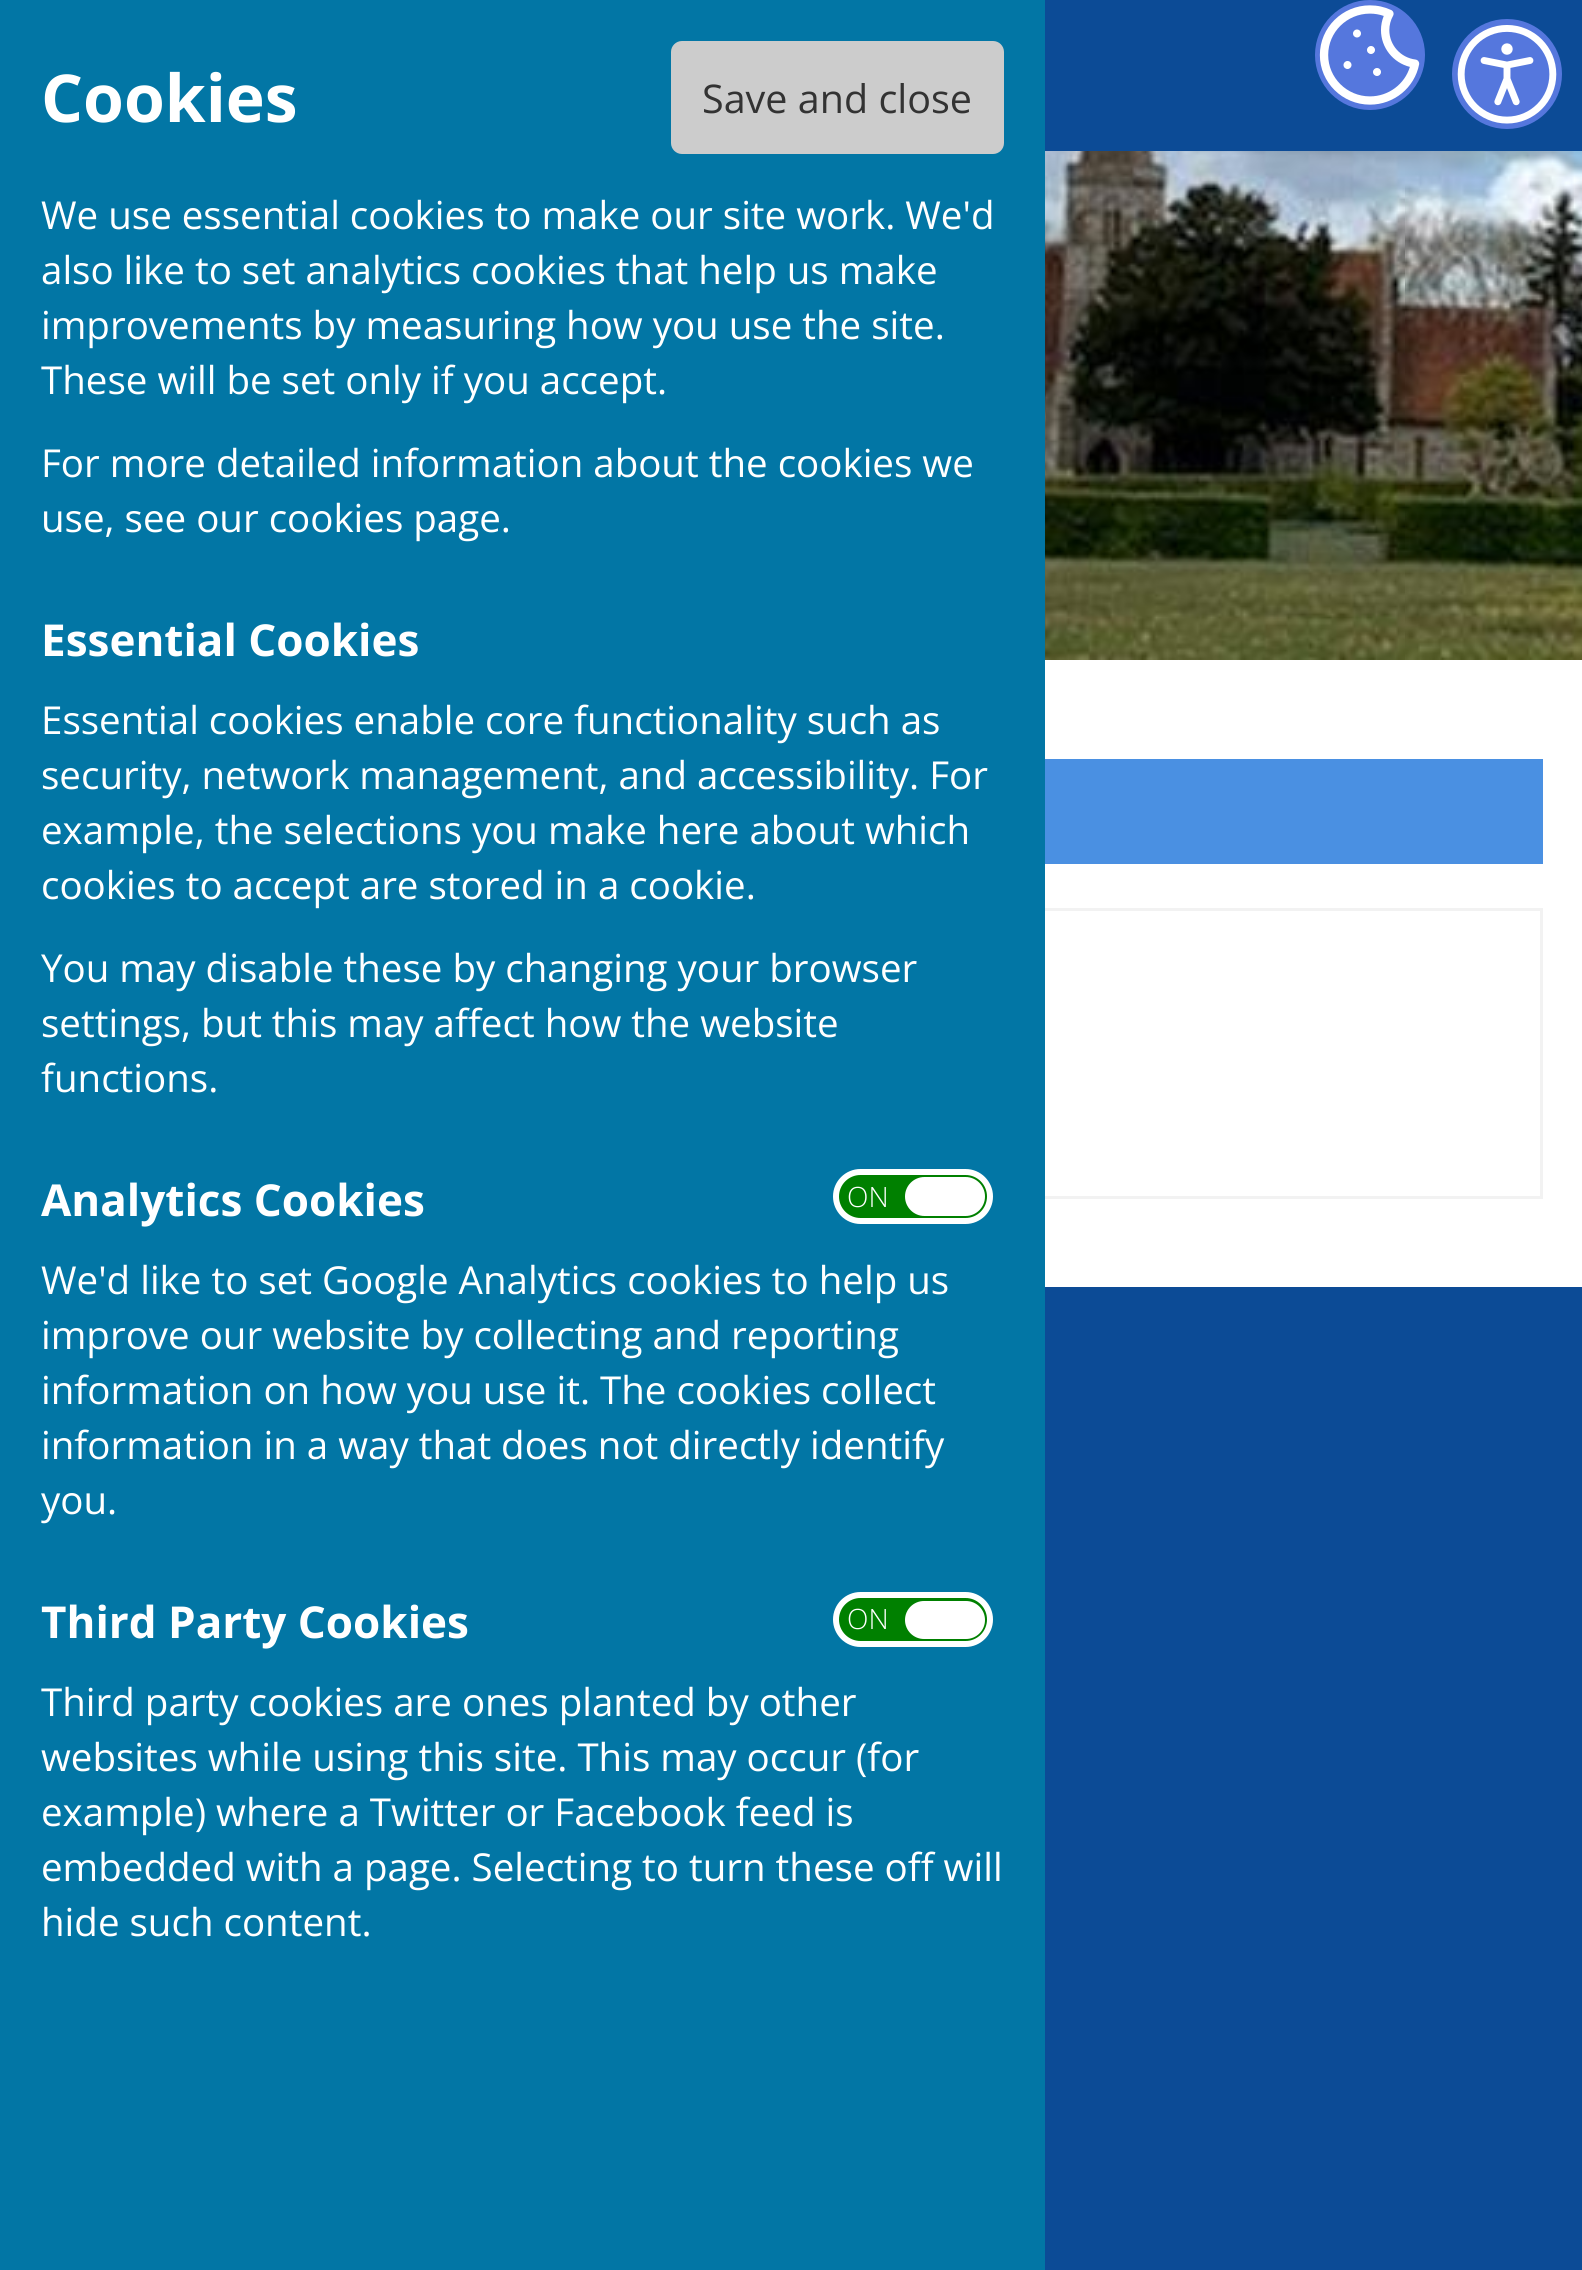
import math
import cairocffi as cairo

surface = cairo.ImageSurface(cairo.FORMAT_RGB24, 1582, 2270)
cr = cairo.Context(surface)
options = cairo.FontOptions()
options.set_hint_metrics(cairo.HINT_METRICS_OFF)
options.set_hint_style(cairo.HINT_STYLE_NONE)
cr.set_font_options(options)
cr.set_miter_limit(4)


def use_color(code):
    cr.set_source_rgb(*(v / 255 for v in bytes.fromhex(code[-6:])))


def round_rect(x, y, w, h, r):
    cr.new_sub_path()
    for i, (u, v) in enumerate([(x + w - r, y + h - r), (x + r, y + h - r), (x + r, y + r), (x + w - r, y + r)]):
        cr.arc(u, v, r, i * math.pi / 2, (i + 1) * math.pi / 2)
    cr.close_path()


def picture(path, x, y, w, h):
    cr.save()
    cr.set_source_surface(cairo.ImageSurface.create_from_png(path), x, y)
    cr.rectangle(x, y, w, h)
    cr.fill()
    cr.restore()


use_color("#ffffff")
cr.paint()
picture("img1.png", 1045, 151, 537, 509)
use_color("#0c4b96")
cr.rectangle(1045, 0, 537, 151)
cr.fill()
use_color("#5577dd")
cr.arc(1370, 55, 55, 0, 2 * math.pi)
cr.fill()
picture("img2.png", 1319, 5, 101, 100)
cr.arc(1507, 74, 55, 0, 2 * math.pi)
cr.fill()
picture("img3.png", 1457, 25, 100, 99)
use_color("#4a90e2")
cr.rectangle(1045, 759, 498, 105)
cr.fill()
cr.rectangle(42.5, 909.5, 1499, 288)
use_color("#f2f2f2")
cr.set_line_width(3)
cr.stroke()
use_color("#0c4b96")
cr.rectangle(1045, 1287, 537, 983)
cr.fill()
use_color("#0276a5")
cr.rectangle(0, 0, 1045, 2270)
cr.fill()
cr.select_font_face("Open Sans", cairo.FONT_SLANT_NORMAL, cairo.FONT_WEIGHT_BOLD)
cr.set_font_size(66)
use_color("#ffffff")
cr.move_to(41, 122)
cr.show_text("Cookies")
use_color("#cccccc")
round_rect(671, 41, 333, 113, 11)
cr.fill()
cr.select_font_face("Open Sans")
cr.set_font_size(39.5)
use_color("#333333")
cr.move_to(702, 113)
cr.show_text("Save and close")
cr.set_font_size(38.5)
use_color("#ffffff")
cr.move_to(41, 229)
cr.show_text("We use essential cookies to make our site work. We'd")
cr.move_to(41, 284)
cr.show_text("also like to set analytics cookies that help us make")
cr.move_to(41, 339)
cr.show_text("improvements by measuring how you use the site.")
cr.move_to(41, 394)
cr.show_text("These will be set only if you accept.")
cr.move_to(41, 477)
cr.show_text("For more detailed information about the cookies we")
cr.move_to(41, 532)
cr.show_text("use, see our cookies page.")
cr.select_font_face("Open Sans", cairo.FONT_SLANT_NORMAL, cairo.FONT_WEIGHT_BOLD)
cr.set_font_size(44)
cr.move_to(41, 656)
cr.show_text("Essential Cookies")
cr.select_font_face("Open Sans")
cr.set_font_size(38.5)
cr.move_to(41, 734)
cr.show_text("Essential cookies enable core functionality such as")
cr.move_to(41, 789)
cr.show_text("security, network management, and accessibility. For")
cr.move_to(41, 844)
cr.show_text("example, the selections you make here about which")
cr.move_to(41, 899)
cr.show_text("cookies to accept are stored in a cookie.")
cr.move_to(41, 982)
cr.show_text("You may disable these by changing your browser")
cr.move_to(41, 1037)
cr.show_text("settings, but this may affect how the website")
cr.move_to(41, 1092)
cr.show_text("functions.")
cr.select_font_face("Open Sans", cairo.FONT_SLANT_NORMAL, cairo.FONT_WEIGHT_BOLD)
cr.set_font_size(44)
cr.move_to(41, 1216)
cr.show_text("Analytics Cookies")
use_color("#008000")
round_rect(836, 1172, 154, 49, 24.5)
cr.fill_preserve()
use_color("#ffffff")
cr.set_line_width(6)
cr.stroke()
cr.select_font_face("Open Sans Light")
cr.set_font_size(28)
cr.move_to(847, 1207)
cr.show_text("ON")
round_rect(905, 1177, 80, 39, 19.5)
cr.fill()
cr.select_font_face("Open Sans")
cr.set_font_size(38.5)
cr.move_to(41, 1294)
cr.show_text("We'd like to set Google Analytics cookies to help us")
cr.move_to(41, 1349)
cr.show_text("improve our website by collecting and reporting")
cr.move_to(41, 1404)
cr.show_text("information on how you use it. The cookies collect")
cr.move_to(41, 1459)
cr.show_text("information in a way that does not directly identify")
cr.move_to(41, 1514)
cr.show_text("you.")
cr.select_font_face("Open Sans", cairo.FONT_SLANT_NORMAL, cairo.FONT_WEIGHT_BOLD)
cr.set_font_size(44)
cr.move_to(41, 1638)
cr.show_text("Third Party Cookies")
use_color("#008000")
round_rect(836, 1595, 154, 49, 24.5)
cr.fill_preserve()
use_color("#ffffff")
cr.stroke()
cr.select_font_face("Open Sans Light")
cr.set_font_size(28)
cr.move_to(847, 1629)
cr.show_text("ON")
round_rect(905, 1601, 80, 38, 19)
cr.fill()
cr.select_font_face("Open Sans")
cr.set_font_size(38.5)
cr.move_to(41, 1716)
cr.show_text("Third party cookies are ones planted by other")
cr.move_to(41, 1771)
cr.show_text("websites while using this site. This may occur (for")
cr.move_to(41, 1826)
cr.show_text("example) where a Twitter or Facebook feed is")
cr.move_to(41, 1881)
cr.show_text("embedded with a page. Selecting to turn these off will")
cr.move_to(41, 1936)
cr.show_text("hide such content.")
surface.write_to_png("result.png")
